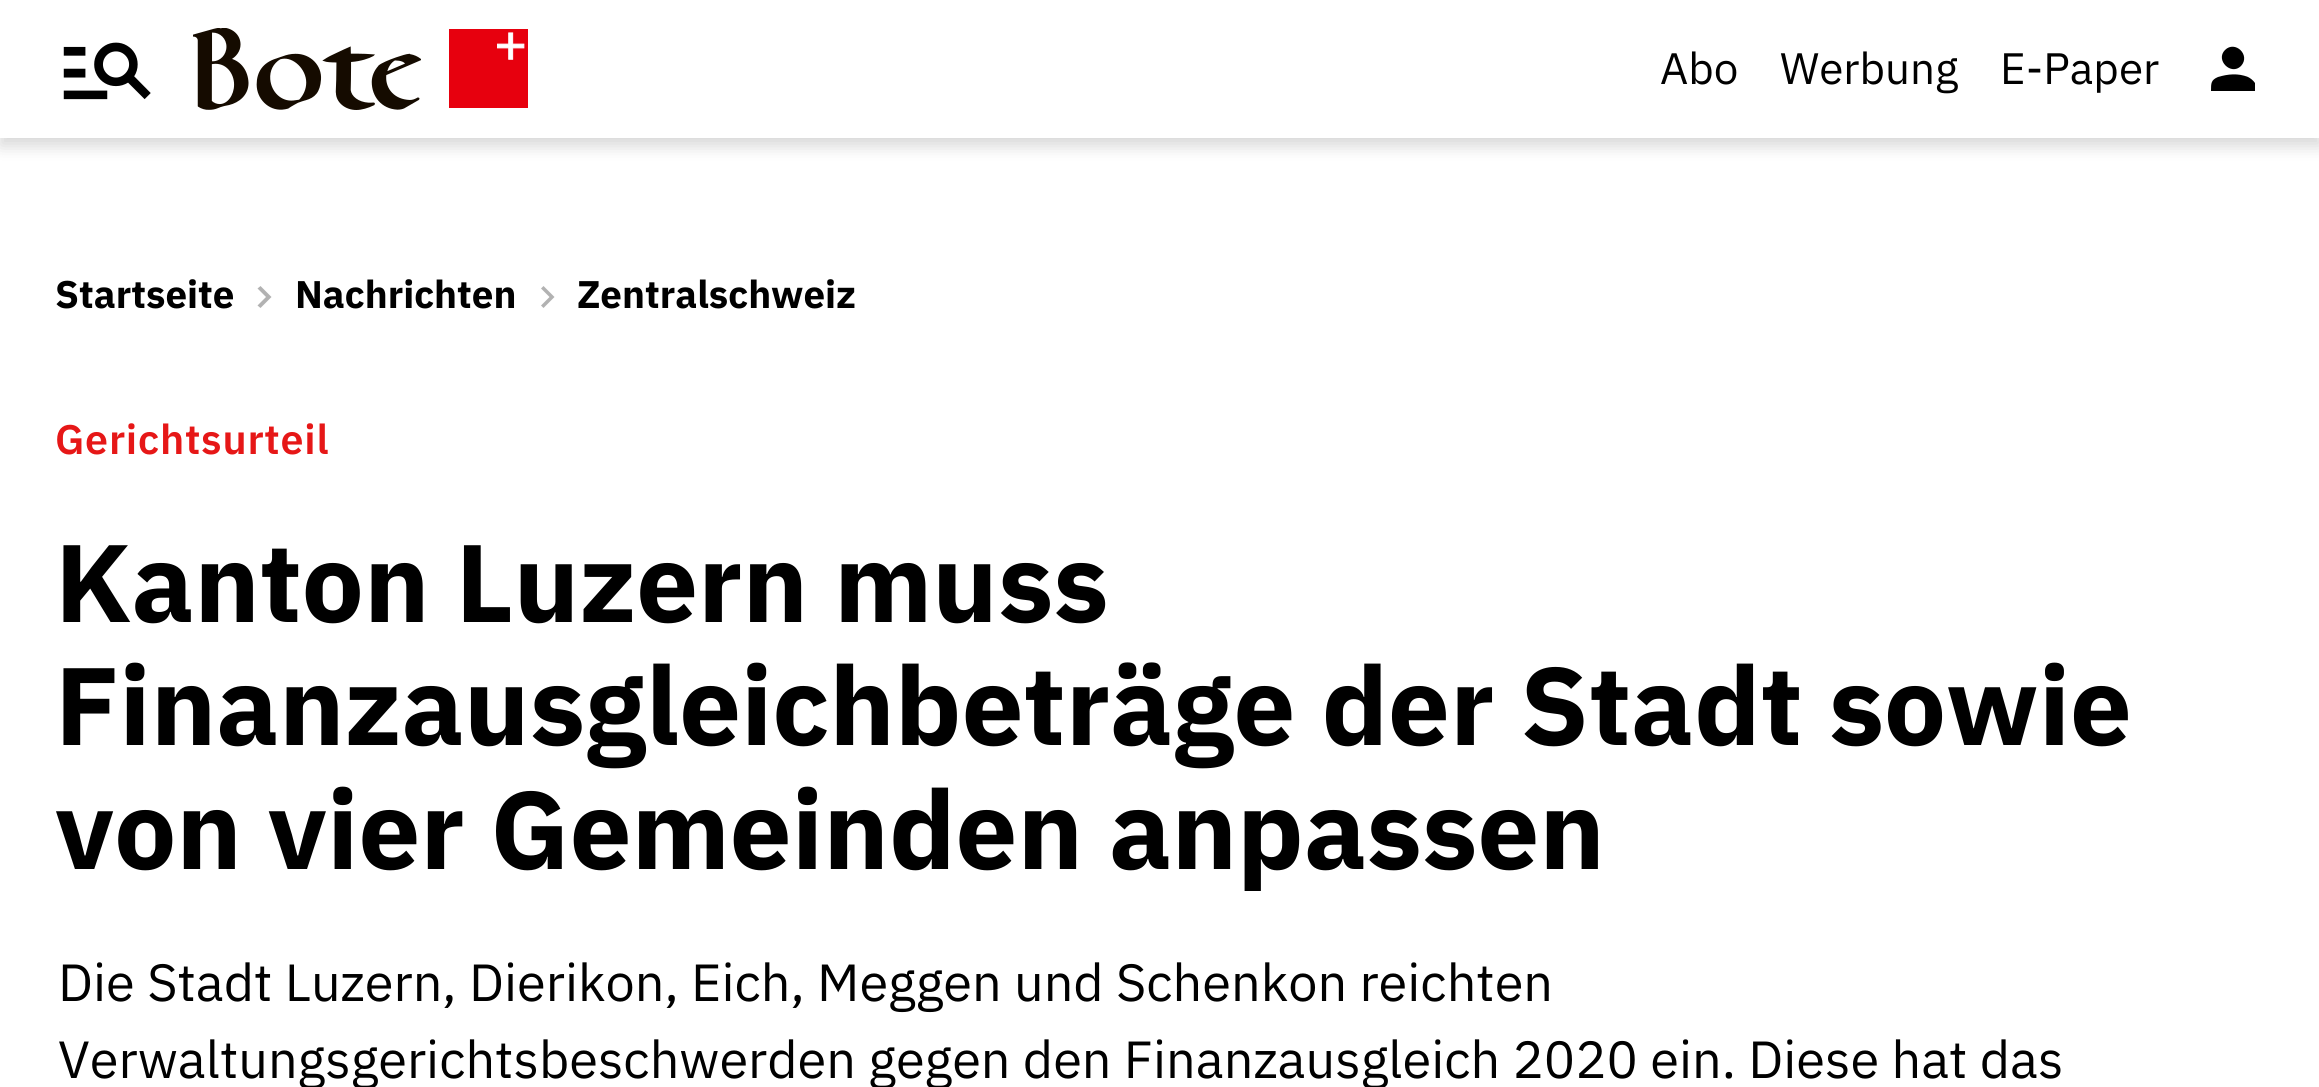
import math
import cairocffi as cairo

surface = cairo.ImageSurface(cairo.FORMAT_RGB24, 2319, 1087)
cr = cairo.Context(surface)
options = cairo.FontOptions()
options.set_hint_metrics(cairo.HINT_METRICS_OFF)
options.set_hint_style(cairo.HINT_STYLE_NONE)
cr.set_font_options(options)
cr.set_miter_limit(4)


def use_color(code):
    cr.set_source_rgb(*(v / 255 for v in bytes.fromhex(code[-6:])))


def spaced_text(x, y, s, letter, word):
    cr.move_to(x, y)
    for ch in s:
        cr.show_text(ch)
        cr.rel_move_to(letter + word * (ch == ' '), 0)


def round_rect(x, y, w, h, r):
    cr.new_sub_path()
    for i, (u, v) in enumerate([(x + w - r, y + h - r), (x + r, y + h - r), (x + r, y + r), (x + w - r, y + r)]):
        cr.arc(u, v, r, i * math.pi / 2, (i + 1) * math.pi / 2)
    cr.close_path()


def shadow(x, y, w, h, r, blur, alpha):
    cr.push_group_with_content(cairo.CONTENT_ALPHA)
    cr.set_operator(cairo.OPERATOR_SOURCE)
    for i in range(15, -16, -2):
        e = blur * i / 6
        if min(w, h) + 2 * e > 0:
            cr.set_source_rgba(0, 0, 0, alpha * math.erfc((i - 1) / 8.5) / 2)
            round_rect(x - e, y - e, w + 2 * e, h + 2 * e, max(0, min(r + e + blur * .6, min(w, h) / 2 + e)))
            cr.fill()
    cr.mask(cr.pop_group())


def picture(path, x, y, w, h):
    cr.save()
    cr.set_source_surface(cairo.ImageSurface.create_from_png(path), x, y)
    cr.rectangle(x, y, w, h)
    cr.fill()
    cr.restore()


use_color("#ffffff")
cr.paint()
use_color("#000000")
shadow(0, 8, 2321, 138, 0, 8, 0.16)
use_color("#ffffff")
cr.rectangle(0, 0, 2319, 138)
cr.fill()
picture("img1.png", 63, 42, 88, 58)
picture("img2.png", 193, 28, 335, 82)
cr.select_font_face("IBM Plex Sans")
cr.set_font_size(44)
use_color("#000000")
cr.move_to(1660, 84)
cr.show_text("Abo")
cr.move_to(1780, 84)
cr.show_text("Werbung")
cr.move_to(2000, 84)
cr.show_text("E-Paper")
cr.new_path()
cr.move_to(2218, 77)
cr.curve_to(2228, 74, 2238, 73, 2248, 77)
cr.curve_to(2250, 78, 2253, 80, 2255, 83)
cr.line_to(2255, 91)
cr.line_to(2211, 91)
cr.curve_to(2211, 83, 2211, 80, 2218, 77)
cr.close_path()
cr.move_to(2241, 66)
cr.curve_to(2231, 76, 2215, 60, 2225, 50)
cr.curve_to(2235, 40, 2251, 55, 2241, 66)
cr.close_path()
cr.fill()
cr.select_font_face("IBM Plex Sans", cairo.FONT_SLANT_NORMAL, cairo.FONT_WEIGHT_BOLD)
cr.set_font_size(38.5)
cr.move_to(55, 308)
cr.show_text("Startseite")
use_color("#b2b2b2")
cr.new_path()
cr.move_to(260.5, 286)
cr.line_to(271.5, 297)
cr.line_to(260.5, 308)
cr.line_to(257.5, 305.5)
cr.line_to(266, 297)
cr.line_to(257.5, 288.5)
cr.close_path()
cr.fill()
use_color("#000000")
cr.move_to(295, 308)
cr.show_text("Nachrichten")
use_color("#b2b2b2")
cr.new_path()
cr.move_to(543.5, 286)
cr.line_to(554.5, 297)
cr.line_to(543.5, 308)
cr.line_to(541, 305.5)
cr.line_to(549.5, 297)
cr.line_to(541, 288.5)
cr.close_path()
cr.fill()
use_color("#000000")
cr.move_to(577, 308)
cr.show_text("Zentralschweiz")
cr.select_font_face("IBM Plex Sans SemiBold")
cr.set_font_size(41.25)
use_color("#e61717")
spaced_text(55, 454, "Gerichtsurteil", 0.75, 0)
cr.select_font_face("IBM Plex Sans", cairo.FONT_SLANT_NORMAL, cairo.FONT_WEIGHT_BOLD)
cr.set_font_size(110)
use_color("#000000")
cr.move_to(55, 622)
cr.show_text("Kanton Luzern muss")
cr.move_to(55, 745)
cr.show_text("Finanzausgleichbeträge der Stadt sowie")
cr.move_to(55, 869)
cr.show_text("von vier Gemeinden anpassen")
cr.select_font_face("IBM Plex Sans")
cr.set_font_size(52.25)
cr.move_to(58, 1001)
cr.show_text("Die Stadt Luzern, Dierikon, Eich, Meggen und Schenkon reichten")
cr.move_to(58, 1078)
cr.show_text("Verwaltungsgerichtsbeschwerden gegen den Finanzausgleich 2020 ein. Diese hat das")
surface.write_to_png("result.png")
